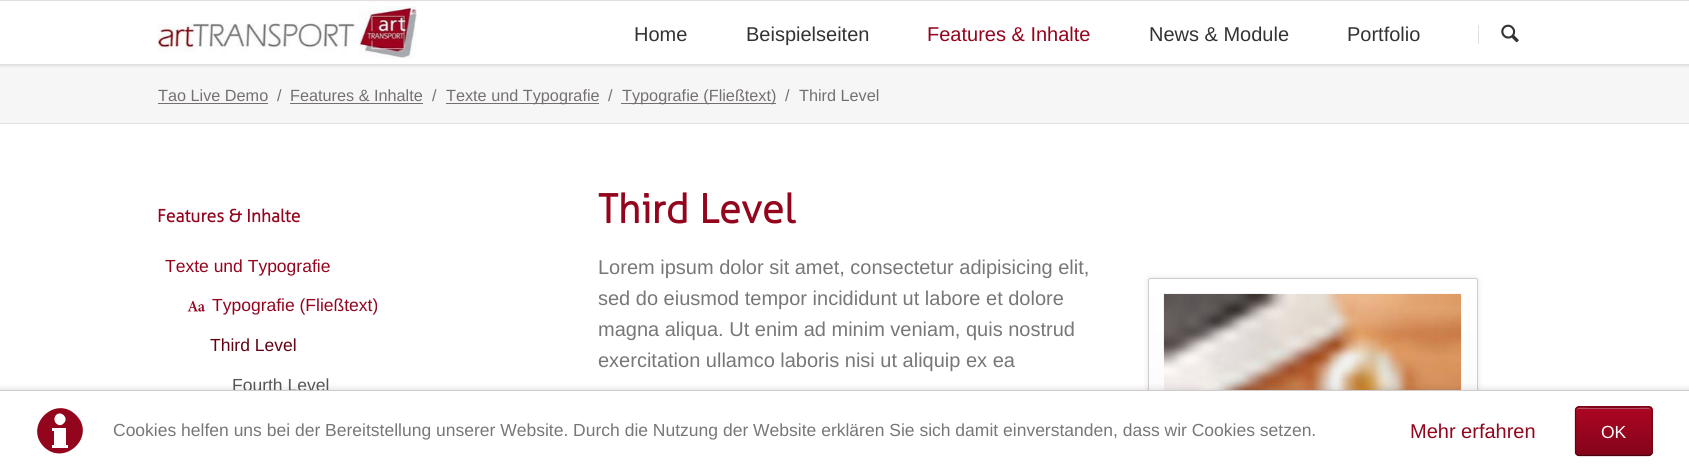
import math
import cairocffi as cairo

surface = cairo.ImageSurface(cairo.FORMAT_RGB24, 1689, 471)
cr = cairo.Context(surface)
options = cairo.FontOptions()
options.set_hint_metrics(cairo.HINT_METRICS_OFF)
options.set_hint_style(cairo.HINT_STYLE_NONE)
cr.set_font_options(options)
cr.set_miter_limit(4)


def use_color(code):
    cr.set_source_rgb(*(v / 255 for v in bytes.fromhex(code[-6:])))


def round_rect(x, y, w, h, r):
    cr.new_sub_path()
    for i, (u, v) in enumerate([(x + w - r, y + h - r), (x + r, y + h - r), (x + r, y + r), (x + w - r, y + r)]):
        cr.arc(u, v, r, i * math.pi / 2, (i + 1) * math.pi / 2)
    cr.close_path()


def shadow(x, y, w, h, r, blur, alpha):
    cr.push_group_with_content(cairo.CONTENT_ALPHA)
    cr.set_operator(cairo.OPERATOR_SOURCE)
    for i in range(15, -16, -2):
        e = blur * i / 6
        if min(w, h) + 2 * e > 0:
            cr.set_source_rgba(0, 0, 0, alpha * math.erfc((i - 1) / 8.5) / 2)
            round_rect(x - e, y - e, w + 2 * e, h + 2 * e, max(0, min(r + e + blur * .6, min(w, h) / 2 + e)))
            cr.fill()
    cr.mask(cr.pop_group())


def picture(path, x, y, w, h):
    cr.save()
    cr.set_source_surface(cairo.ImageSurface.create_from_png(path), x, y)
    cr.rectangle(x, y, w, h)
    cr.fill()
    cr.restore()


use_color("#ffffff")
cr.paint()
use_color("#e5dede")
cr.rectangle(0, 0, 1689, 1)
cr.fill()
use_color("#f6f6f6")
cr.rectangle(0, 65, 1689, 58)
cr.fill()
use_color("#000000")
shadow(0, 3, 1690, 63, 0, 1, 0.1)
use_color("#ffffff")
cr.rectangle(0, 2, 1689, 62)
cr.fill()
use_color("#e5dede")
cr.rectangle(0, 64, 1689, 1)
cr.fill()
picture("img1.png", 157, 6, 260, 53)
cr.select_font_face("Liberation Sans")
cr.set_font_size(20)
use_color("#333333")
cr.move_to(634, 41)
cr.show_text("Home")
cr.move_to(746, 41)
cr.show_text("Beispielseiten")
use_color("#93041d")
cr.move_to(927, 41)
cr.show_text("Features & Inhalte")
use_color("#333333")
cr.move_to(1149, 41)
cr.show_text("News & Module")
cr.move_to(1347, 41)
cr.show_text("Portfolio")
use_color("#e5dede")
cr.rectangle(1478, 25, 1, 19)
cr.fill()
picture("img2.png", 1501, 24, 18, 19)
cr.rectangle(0, 123, 1689, 1)
cr.fill()
cr.set_font_size(16.25)
use_color("#757070")
cr.move_to(158, 101)
cr.show_text("Tao Live Demo")
cr.rectangle(158, 103, 110, 1)
cr.fill()
cr.move_to(277, 101)
cr.show_text("/")
cr.move_to(290, 101)
cr.show_text("Features & Inhalte")
cr.rectangle(290, 103, 133, 1)
cr.fill()
cr.move_to(432, 101)
cr.show_text("/")
cr.rectangle(446, 103, 153, 1)
cr.fill()
cr.move_to(446, 101)
cr.show_text("Texte und Typografie")
cr.move_to(608, 101)
cr.show_text("/")
cr.rectangle(621, 103, 155, 1)
cr.fill()
cr.move_to(622, 101)
cr.show_text("Typografie (Fließtext)")
cr.move_to(785, 101)
cr.show_text("/")
cr.move_to(799, 101)
cr.show_text("Third Level")
cr.select_font_face("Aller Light", cairo.FONT_SLANT_NORMAL, cairo.FONT_WEIGHT_BOLD)
cr.set_font_size(17.5)
use_color("#93041d")
cr.move_to(157, 222)
cr.show_text("Features & Inhalte")
cr.select_font_face("Liberation Sans")
cr.move_to(165, 272)
cr.show_text("Texte und Typografie")
picture("img3.png", 187, 300, 18, 12)
cr.move_to(212, 311)
cr.show_text("Typografie (Fließtext)")
use_color("#610313")
cr.move_to(210, 351)
cr.show_text("Third Level")
use_color("#575757")
cr.move_to(232, 391)
cr.show_text("Fourth Level")
cr.select_font_face("Aller Light", cairo.FONT_SLANT_NORMAL, cairo.FONT_WEIGHT_BOLD)
cr.set_font_size(40)
use_color("#93041d")
cr.move_to(598, 223)
cr.show_text("Third Level")
cr.select_font_face("Liberation Sans")
cr.set_font_size(20)
use_color("#777777")
cr.move_to(598, 274)
cr.show_text("Lorem ipsum dolor sit amet, consectetur adipisicing elit,")
cr.move_to(598, 305)
cr.show_text("sed do eiusmod tempor incididunt ut labore et dolore")
cr.move_to(598, 336)
cr.show_text("magna aliqua. Ut enim ad minim veniam, quis nostrud")
cr.move_to(598, 367)
cr.show_text("exercitation ullamco laboris nisi ut aliquip ex ea")
use_color("#000000")
shadow(1148, 278, 330, 181, 2.5, 3, 0.1)
gradient = cairo.LinearGradient(1313, 279, 1313, 458)
gradient.add_color_stop_rgba(0, 1, 1, 1, 1)
gradient.add_color_stop_rgba(1, 0.98, 0.98, 0.98, 1)
cr.set_source(gradient)
cr.rectangle(1148, 279, 330, 111)
cr.fill()
round_rect(1148.5, 278.5, 329, 180, 2)
use_color("#d2cbcb")
cr.set_line_width(1)
cr.stroke()
picture("img4.png", 1163, 293, 299, 97)
use_color("#000000")
shadow(0, 388, 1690, 81, 0, 3, 0.1)
use_color("#ffffff")
cr.rectangle(0, 391, 1689, 80)
cr.fill()
use_color("#d2cbcb")
cr.rectangle(0, 390, 1689, 1)
cr.fill()
use_color("#93041d")
cr.new_path()
cr.move_to(76, 415)
cr.curve_to(55, 394, 23, 426, 44, 447)
cr.curve_to(65, 467, 97, 436, 76, 415)
cr.close_path()
cr.move_to(56, 415)
cr.curve_to(61, 410, 69, 418, 64, 423)
cr.curve_to(59, 429, 51, 421, 56, 415)
cr.close_path()
cr.move_to(68, 448)
cr.line_to(52, 448)
cr.line_to(52, 445)
cr.line_to(54, 445)
cr.line_to(54, 431)
cr.line_to(52, 431)
cr.line_to(52, 428)
cr.line_to(66, 428)
cr.line_to(66, 445)
cr.line_to(68, 445)
cr.close_path()
cr.fill()
cr.set_font_size(17.5)
use_color("#777777")
cr.move_to(113, 436)
cr.show_text("Cookies helfen uns bei der Bereitstellung unserer Website. Durch die Nutzung der Website erklären Sie sich damit einverstanden, dass wir Cookies setzen.")
cr.set_font_size(20)
use_color("#93041d")
cr.move_to(1410, 438)
cr.show_text("Mehr erfahren")
cr.save()
round_rect(1575, 406, 78, 50, 4)
cr.clip()
gradient = cairo.LinearGradient(1614, 360, 1614, 408)
gradient.add_color_stop_rgba(0, 0.675, 0.02, 0.133, 1)
gradient.add_color_stop_rgba(1, 0.518, 0.016, 0.102, 1)
cr.set_source(gradient)
cr.rectangle(1575, 406, 78, 2)
cr.fill()
gradient = cairo.LinearGradient(1614, 408, 1614, 455)
gradient.add_color_stop_rgba(0, 0.675, 0.02, 0.133, 1)
gradient.add_color_stop_rgba(1, 0.518, 0.016, 0.102, 1)
cr.set_source(gradient)
cr.rectangle(1575, 408, 78, 47)
cr.fill()
gradient = cairo.LinearGradient(1614, 455, 1614, 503)
gradient.add_color_stop_rgba(0, 0.675, 0.02, 0.133, 1)
gradient.add_color_stop_rgba(1, 0.518, 0.016, 0.102, 1)
cr.set_source(gradient)
cr.rectangle(1575, 455, 78, 1)
cr.fill()
cr.restore()
use_color("#b34f60")
cr.new_path()
cr.move_to(1579, 409)
cr.line_to(1649, 409)
cr.curve_to(1650, 409, 1651, 410, 1651, 411)
cr.curve_to(1651, 405, 1638, 408, 1637, 408)
cr.line_to(1590, 408)
cr.curve_to(1589, 408, 1576, 405, 1576, 411)
cr.curve_to(1576, 410, 1577, 409, 1579, 409)
cr.close_path()
cr.fill()
cr.new_path()
cr.move_to(1576.5, 408)
cr.line_to(1578.5, 407)
cr.line_to(1649, 407)
cr.line_to(1651, 408)
use_color("#7a0318")
cr.set_line_width(1.2)
cr.stroke()
cr.new_path()
cr.move_to(1651, 408)
cr.line_to(1652, 409.5)
cr.line_to(1652, 453)
cr.line_to(1651, 454.5)
use_color("#610313")
cr.stroke()
cr.new_path()
cr.move_to(1651, 454.5)
cr.line_to(1649, 455.5)
cr.line_to(1578.5, 455.5)
cr.line_to(1576.5, 454.5)
use_color("#49020e")
cr.stroke()
cr.new_path()
cr.move_to(1576.5, 454.5)
cr.line_to(1575.5, 453)
cr.line_to(1575.5, 409.5)
cr.line_to(1576.5, 408)
use_color("#610313")
cr.stroke()
cr.set_font_size(17.5)
use_color("#ffffff")
cr.move_to(1601, 438)
cr.show_text("OK")
surface.write_to_png("result.png")
